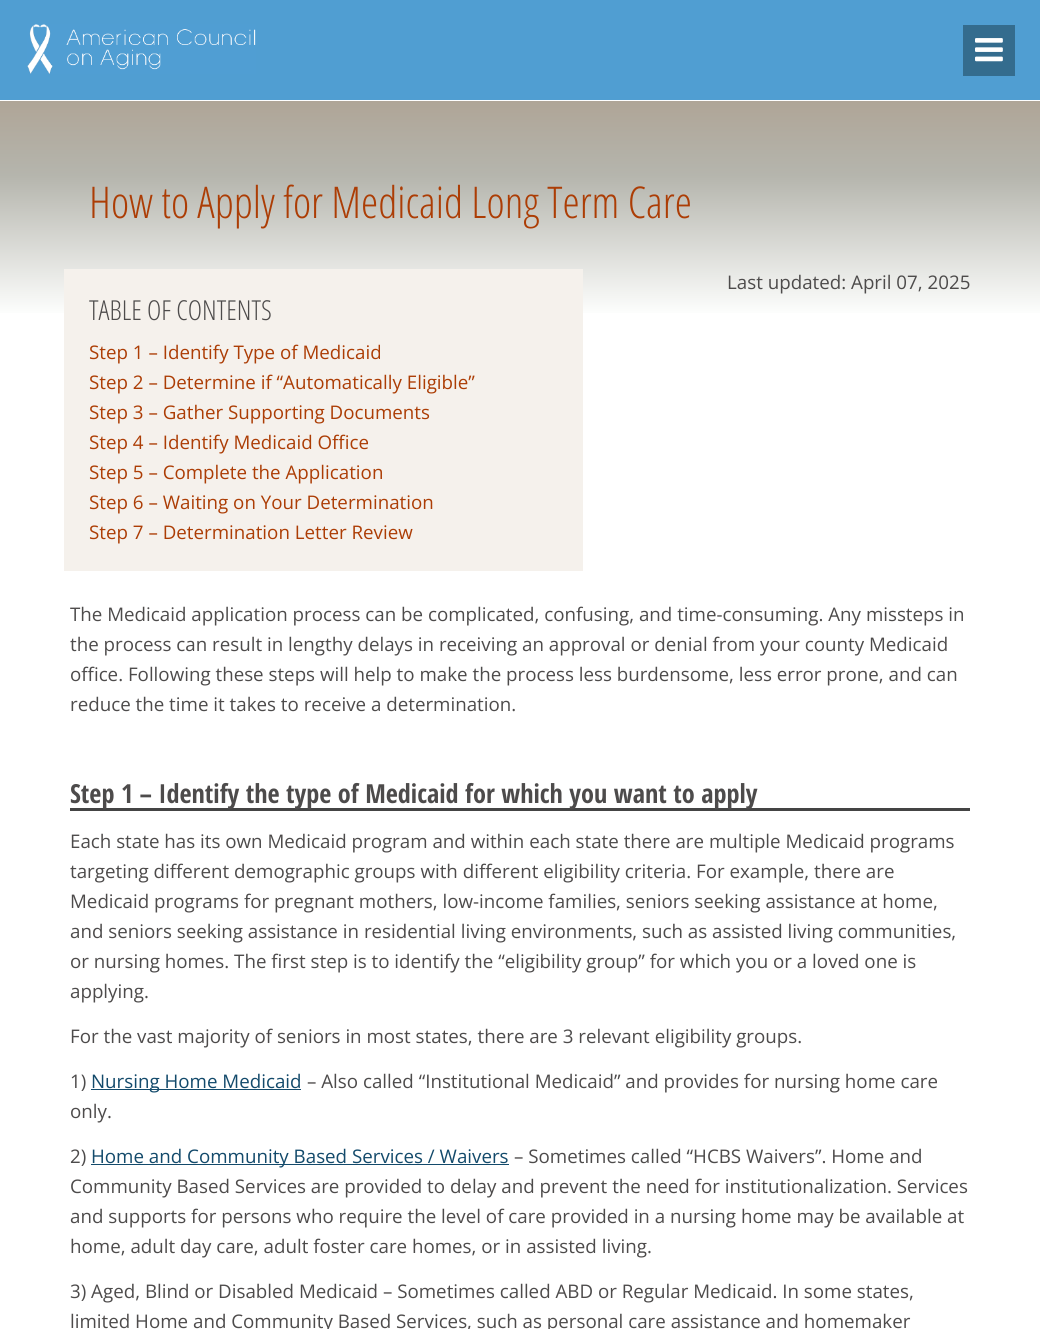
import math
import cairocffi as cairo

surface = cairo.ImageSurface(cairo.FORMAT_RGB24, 1040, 1329)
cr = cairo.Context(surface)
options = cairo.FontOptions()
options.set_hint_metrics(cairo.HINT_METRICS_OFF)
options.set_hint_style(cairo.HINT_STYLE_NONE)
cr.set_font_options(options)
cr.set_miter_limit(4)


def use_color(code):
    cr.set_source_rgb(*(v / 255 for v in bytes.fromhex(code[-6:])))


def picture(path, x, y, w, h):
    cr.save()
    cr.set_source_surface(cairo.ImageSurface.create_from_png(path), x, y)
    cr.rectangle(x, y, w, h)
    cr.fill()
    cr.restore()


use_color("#ffffff")
cr.paint()
use_color("#509ed2")
cr.rectangle(0, 0, 1040, 100)
cr.fill()
picture("img1.png", 27, 24, 229, 50)
use_color("#346c8e")
cr.rectangle(963, 25, 52, 51)
cr.fill()
picture("img2.png", 975, 38, 28, 24)
gradient = cairo.LinearGradient(520, 101, 520, 314)
gradient.add_color_stop_rgba(0, 0.686, 0.647, 0.592, 1)
gradient.add_color_stop_rgba(0.35, 0.71, 0.71, 0.678, 1)
gradient.add_color_stop_rgba(1, 0.992, 0.996, 0.992, 1)
cr.set_source(gradient)
cr.rectangle(0, 101, 1040, 212)
cr.fill()
cr.select_font_face("Open Sans Condensed Light")
cr.set_font_size(43.75)
use_color("#ac3d05")
cr.move_to(89, 218)
cr.show_text("How to Apply for Medicaid Long Term Care")
cr.select_font_face("Open Sans")
cr.set_font_size(18.75)
use_color("#4d4b4b")
cr.move_to(727, 289)
cr.show_text("Last updated: April 07, 2025")
use_color("#f5f1ec")
cr.rectangle(64, 269, 519, 302)
cr.fill()
cr.select_font_face("Open Sans Condensed Light")
cr.set_font_size(27.5)
use_color("#4d4b4b")
cr.move_to(89, 320)
cr.show_text("TABLE OF CONTENTS")
cr.select_font_face("Open Sans")
cr.set_font_size(18.75)
use_color("#ac3d05")
cr.move_to(89, 359)
cr.show_text("Step 1 – Identify Type of Medicaid")
cr.move_to(89, 389)
cr.show_text("Step 2 – Determine if “Automatically Eligible”")
cr.move_to(89, 419)
cr.show_text("Step 3 – Gather Supporting Documents")
cr.move_to(89, 449)
cr.show_text("Step 4 – Identify Medicaid Office")
cr.move_to(89, 479)
cr.show_text("Step 5 – Complete the Application")
cr.move_to(89, 509)
cr.show_text("Step 6 – Waiting on Your Determination")
cr.move_to(89, 539)
cr.show_text("Step 7 – Determination Letter Review")
use_color("#4d4b4b")
cr.move_to(70, 621)
cr.show_text("The Medicaid application process can be complicated, confusing, and time-consuming. Any missteps in")
cr.move_to(70, 651)
cr.show_text("the process can result in lengthy delays in receiving an approval or denial from your county Medicaid")
cr.move_to(70, 681)
cr.show_text("office. Following these steps will help to make the process less burdensome, less error prone, and can")
cr.move_to(70, 711)
cr.show_text("reduce the time it takes to receive a determination.")
use_color("#444444")
cr.rectangle(70, 808, 900, 3)
cr.fill()
cr.select_font_face("Open Sans Condensed", cairo.FONT_SLANT_NORMAL, cairo.FONT_WEIGHT_BOLD)
cr.set_font_size(26.25)
use_color("#4d4b4b")
cr.move_to(70, 803)
cr.show_text("Step 1 – Identify the type of Medicaid for which you want to apply")
cr.select_font_face("Open Sans")
cr.set_font_size(18.75)
cr.move_to(70, 848)
cr.show_text("Each state has its own Medicaid program and within each state there are multiple Medicaid programs")
cr.move_to(70, 878)
cr.show_text("targeting different demographic groups with different eligibility criteria. For example, there are")
cr.move_to(70, 908)
cr.show_text("Medicaid programs for pregnant mothers, low-income families, seniors seeking assistance at home,")
cr.move_to(70, 938)
cr.show_text("and seniors seeking assistance in residential living environments, such as assisted living communities,")
cr.move_to(70, 968)
cr.show_text("or nursing homes. The first step is to identify the “eligibility group” for which you or a loved one is")
cr.move_to(70, 998)
cr.show_text("applying.")
cr.move_to(70, 1043)
cr.show_text("For the vast majority of seniors in most states, there are 3 relevant eligibility groups.")
cr.move_to(70, 1088)
cr.show_text("1)")
use_color("#134a6b")
cr.rectangle(91, 1089, 210, 1)
cr.fill()
cr.move_to(91, 1088)
cr.show_text("Nursing Home Medicaid")
use_color("#4d4b4b")
cr.move_to(307, 1088)
cr.show_text("– Also called “Institutional Medicaid” and provides for nursing home care")
cr.move_to(70, 1118)
cr.show_text("only.")
cr.move_to(70, 1163)
cr.show_text("2)")
use_color("#134a6b")
cr.rectangle(91, 1164, 418, 1)
cr.fill()
cr.move_to(91, 1163)
cr.show_text("Home and Community Based Services / Waivers")
use_color("#4d4b4b")
cr.move_to(514, 1163)
cr.show_text("– Sometimes called “HCBS Waivers”. Home and")
cr.move_to(70, 1193)
cr.show_text("Community Based Services are provided to delay and prevent the need for institutionalization. Services")
cr.move_to(70, 1223)
cr.show_text("and supports for persons who require the level of care provided in a nursing home may be available at")
cr.move_to(70, 1253)
cr.show_text("home, adult day care, adult foster care homes, or in assisted living.")
cr.move_to(70, 1298)
cr.show_text("3) Aged, Blind or Disabled Medicaid – Sometimes called ABD or Regular Medicaid. In some states,")
cr.move_to(70, 1328)
cr.show_text("limited Home and Community Based Services, such as personal care assistance and homemaker")
surface.write_to_png("result.png")
